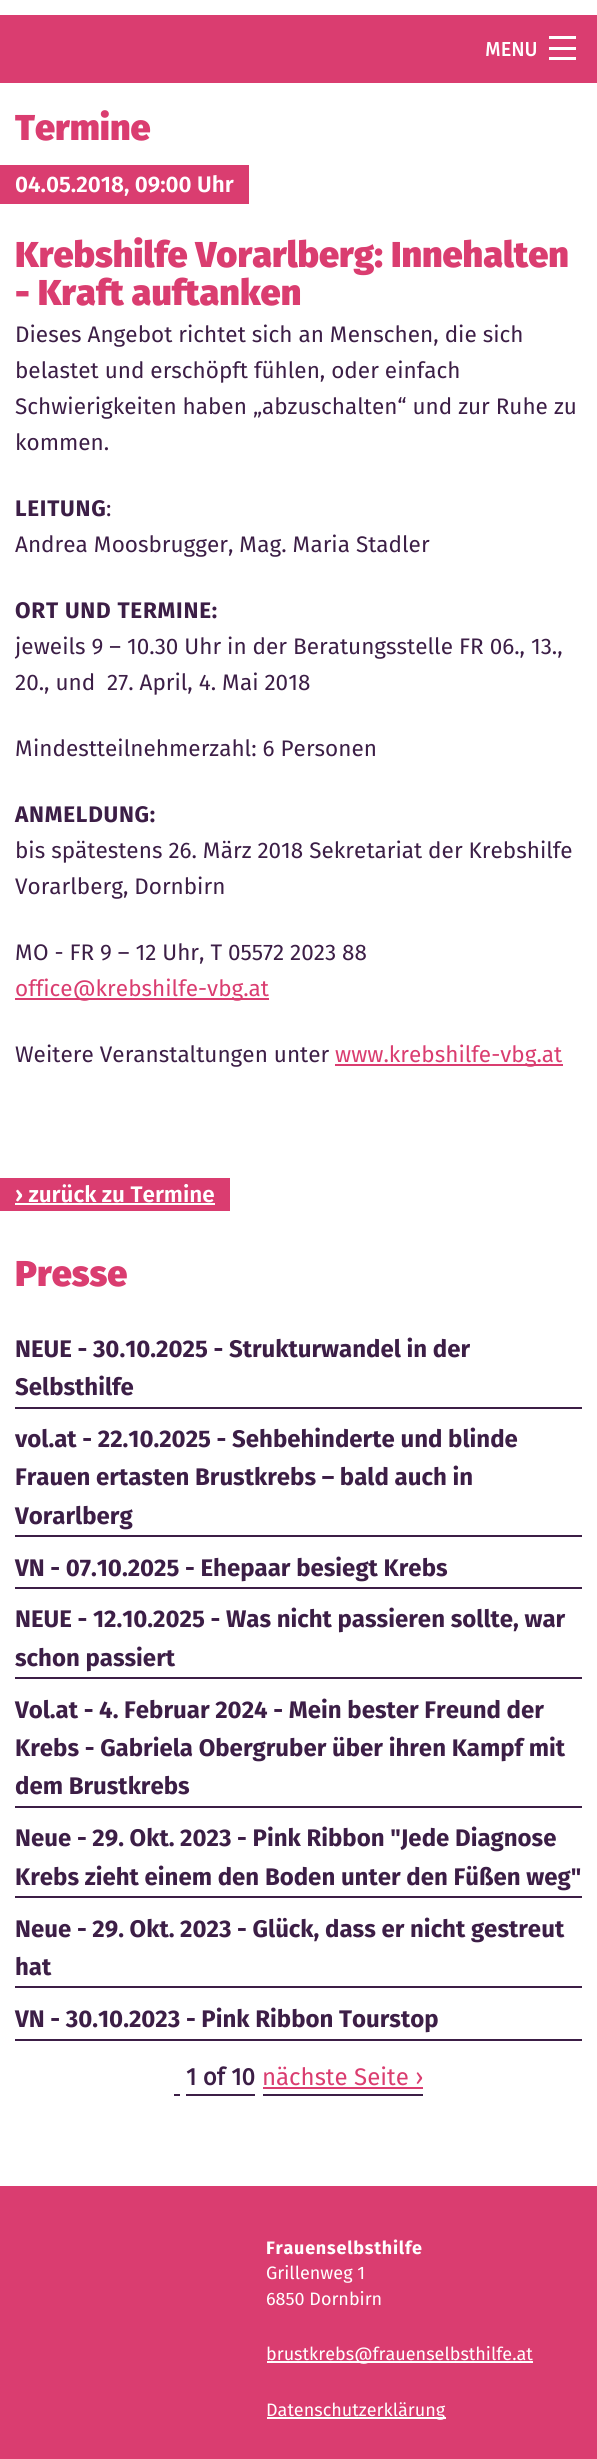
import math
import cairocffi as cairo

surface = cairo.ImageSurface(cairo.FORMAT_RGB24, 597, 2459)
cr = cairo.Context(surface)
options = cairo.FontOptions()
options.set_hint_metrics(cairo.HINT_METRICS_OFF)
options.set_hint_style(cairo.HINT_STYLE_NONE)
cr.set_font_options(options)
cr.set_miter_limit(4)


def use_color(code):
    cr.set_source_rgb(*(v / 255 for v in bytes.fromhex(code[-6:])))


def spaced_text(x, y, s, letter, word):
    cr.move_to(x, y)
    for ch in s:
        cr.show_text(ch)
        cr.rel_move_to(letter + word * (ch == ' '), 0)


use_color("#ffffff")
cr.paint()
use_color("#da3d70")
cr.rectangle(0, 15, 597, 68)
cr.fill()
cr.select_font_face("Fira Sans", cairo.FONT_SLANT_NORMAL, cairo.FONT_WEIGHT_BOLD)
cr.set_font_size(19.5)
use_color("#ffffff")
cr.move_to(485, 56)
cr.show_text("MENU")
cr.rectangle(549, 57, 27, 3)
cr.fill()
cr.rectangle(549, 47, 27, 3)
cr.fill()
cr.rectangle(549, 36, 27, 3)
cr.fill()
cr.select_font_face("Fira Sans Black")
cr.set_font_size(36)
use_color("#da3d70")
cr.move_to(15, 140)
cr.show_text("Termine")
cr.rectangle(0, 165, 249, 39)
cr.fill()
cr.select_font_face("Fira Sans SemiBold")
cr.set_font_size(22.5)
use_color("#ffffff")
cr.move_to(15, 192)
cr.show_text("04.05.2018, 09:00 Uhr")
cr.select_font_face("Fira Sans Black")
cr.set_font_size(36)
use_color("#da3d70")
cr.move_to(15, 267)
cr.show_text("Krebshilfe Vorarlberg: Innehalten")
cr.move_to(15, 305)
cr.show_text("- Kraft auftanken")
cr.select_font_face("Fira Sans")
cr.set_font_size(22.5)
use_color("#3c1e46")
cr.move_to(15, 342)
cr.show_text("Dieses Angebot richtet sich an Menschen, die sich")
cr.move_to(15, 378)
cr.show_text("belastet und erschöpft fühlen, oder einfach")
cr.move_to(15, 414)
cr.show_text("Schwierigkeiten haben „abzuschalten“ und zur Ruhe zu")
cr.move_to(15, 450)
cr.show_text("kommen.")
cr.select_font_face("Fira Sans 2", cairo.FONT_SLANT_NORMAL, cairo.FONT_WEIGHT_BOLD)
spaced_text(15, 516, "LEITUNG", 0.75, 0)
cr.select_font_face("Fira Sans")
cr.move_to(106, 516)
cr.show_text(":")
cr.move_to(15, 552)
cr.show_text("Andrea Moosbrugger, Mag. Maria Stadler")
cr.select_font_face("Fira Sans 2", cairo.FONT_SLANT_NORMAL, cairo.FONT_WEIGHT_BOLD)
spaced_text(15, 618, "ORT UND TERMINE:", 0.75, 0)
cr.select_font_face("Fira Sans")
cr.move_to(15, 654)
cr.show_text("jeweils 9 – 10.30 Uhr in der Beratungsstelle FR 06., 13.,")
cr.move_to(15, 690)
cr.show_text("20., und  27. April, 4. Mai 2018")
cr.move_to(15, 756)
cr.show_text("Mindestteilnehmerzahl: 6 Personen")
cr.select_font_face("Fira Sans 2", cairo.FONT_SLANT_NORMAL, cairo.FONT_WEIGHT_BOLD)
spaced_text(15, 822, "ANMELDUNG:", 0.75, 0)
cr.select_font_face("Fira Sans")
cr.move_to(15, 858)
cr.show_text("bis spätestens 26. März 2018 Sekretariat der Krebshilfe")
cr.move_to(15, 894)
cr.show_text("Vorarlberg, Dornbirn")
cr.move_to(15, 960)
cr.show_text("MO - FR 9 – 12 Uhr, T 05572 2023 88")
use_color("#da3d70")
cr.rectangle(15, 998, 254, 2)
cr.fill()
cr.move_to(15, 996)
cr.show_text("office@krebshilfe-vbg.at")
use_color("#3c1e46")
cr.move_to(15, 1062)
cr.show_text("Weitere Veranstaltungen unter")
use_color("#da3d70")
cr.rectangle(335, 1064, 228, 2)
cr.fill()
cr.move_to(335, 1062)
cr.show_text("www.krebshilfe-vbg.at")
cr.rectangle(0, 1178, 230, 33)
cr.fill()
cr.select_font_face("Fira Sans SemiBold")
use_color("#ffffff")
cr.move_to(15, 1202)
cr.show_text("› zurück zu Termine")
cr.rectangle(15, 1203, 200, 2)
cr.fill()
cr.select_font_face("Fira Sans Black")
cr.set_font_size(36)
use_color("#da3d70")
cr.move_to(15, 1286)
cr.show_text("Presse")
use_color("#3c1e46")
cr.rectangle(15, 1407, 567, 2)
cr.fill()
cr.select_font_face("Fira Sans 2", cairo.FONT_SLANT_NORMAL, cairo.FONT_WEIGHT_BOLD)
cr.set_font_size(24)
cr.move_to(15, 1357)
cr.show_text("NEUE - 30.10.2025 - Strukturwandel in der")
cr.move_to(15, 1395)
cr.show_text("Selbsthilfe")
cr.rectangle(15, 1535, 567, 2)
cr.fill()
cr.move_to(15, 1447)
cr.show_text("vol.at - 22.10.2025 - Sehbehinderte und blinde")
cr.move_to(15, 1485)
cr.show_text("Frauen ertasten Brustkrebs – bald auch in")
cr.move_to(15, 1524)
cr.show_text("Vorarlberg")
cr.rectangle(15, 1587, 567, 2)
cr.fill()
cr.move_to(15, 1576)
cr.show_text("VN - 07.10.2025 - Ehepaar besiegt Krebs")
cr.rectangle(15, 1677, 567, 2)
cr.fill()
cr.move_to(15, 1627)
cr.show_text("NEUE - 12.10.2025 - Was nicht passieren sollte, war")
cr.move_to(15, 1666)
cr.show_text("schon passiert")
cr.rectangle(15, 1806, 567, 2)
cr.fill()
cr.move_to(15, 1718)
cr.show_text("Vol.at - 4. Februar 2024 - Mein bester Freund der")
cr.move_to(15, 1756)
cr.show_text("Krebs - Gabriela Obergruber über ihren Kampf mit")
cr.move_to(15, 1794)
cr.show_text("dem Brustkrebs")
cr.rectangle(15, 1896, 567, 2)
cr.fill()
cr.move_to(15, 1846)
cr.show_text("Neue - 29. Okt. 2023 - Pink Ribbon \"Jede Diagnose")
cr.move_to(15, 1885)
cr.show_text("Krebs zieht einem den Boden unter den Füßen weg\"")
cr.rectangle(15, 1986, 567, 2)
cr.fill()
cr.move_to(15, 1937)
cr.show_text("Neue - 29. Okt. 2023 - Glück, dass er nicht gestreut")
cr.move_to(15, 1975)
cr.show_text("hat")
cr.rectangle(15, 2039, 567, 2)
cr.fill()
cr.move_to(15, 2027)
cr.show_text("VN - 30.10.2023 - Pink Ribbon Tourstop")
cr.select_font_face("Fira Sans", cairo.FONT_SLANT_NORMAL, cairo.FONT_WEIGHT_BOLD)
cr.move_to(186, 2085)
cr.show_text("1 of 10")
cr.rectangle(186, 2094, 69, 2)
cr.fill()
cr.select_font_face("Fira Sans")
use_color("#da3d70")
cr.move_to(262, 2085)
cr.show_text("nächste Seite ›")
use_color("#3c1e46")
cr.rectangle(263, 2094, 160, 2)
cr.fill()
use_color("#da3d70")
cr.rectangle(263, 2087, 160, 2)
cr.fill()
use_color("#3c1e46")
cr.rectangle(174, 2094, 6, 2)
cr.fill()
use_color("#da3d70")
cr.rectangle(0, 2186, 597, 273)
cr.fill()
cr.select_font_face("Fira Sans 2", cairo.FONT_SLANT_NORMAL, cairo.FONT_WEIGHT_BOLD)
cr.set_font_size(18)
use_color("#ffffff")
spaced_text(266, 2254, "Frauenselbsthilfe", 0.75, 0)
cr.select_font_face("Fira Sans")
cr.move_to(266, 2279)
cr.show_text("Grillenweg 1")
cr.move_to(266, 2305)
cr.show_text("6850 Dornbirn")
cr.rectangle(267, 2361, 266, 2)
cr.fill()
cr.move_to(266, 2360)
cr.show_text("brustkrebs@frauenselbsthilfe.at")
cr.rectangle(267, 2417, 179, 2)
cr.fill()
cr.move_to(266, 2416)
cr.show_text("Datenschutzerklärung")
surface.write_to_png("result.png")
